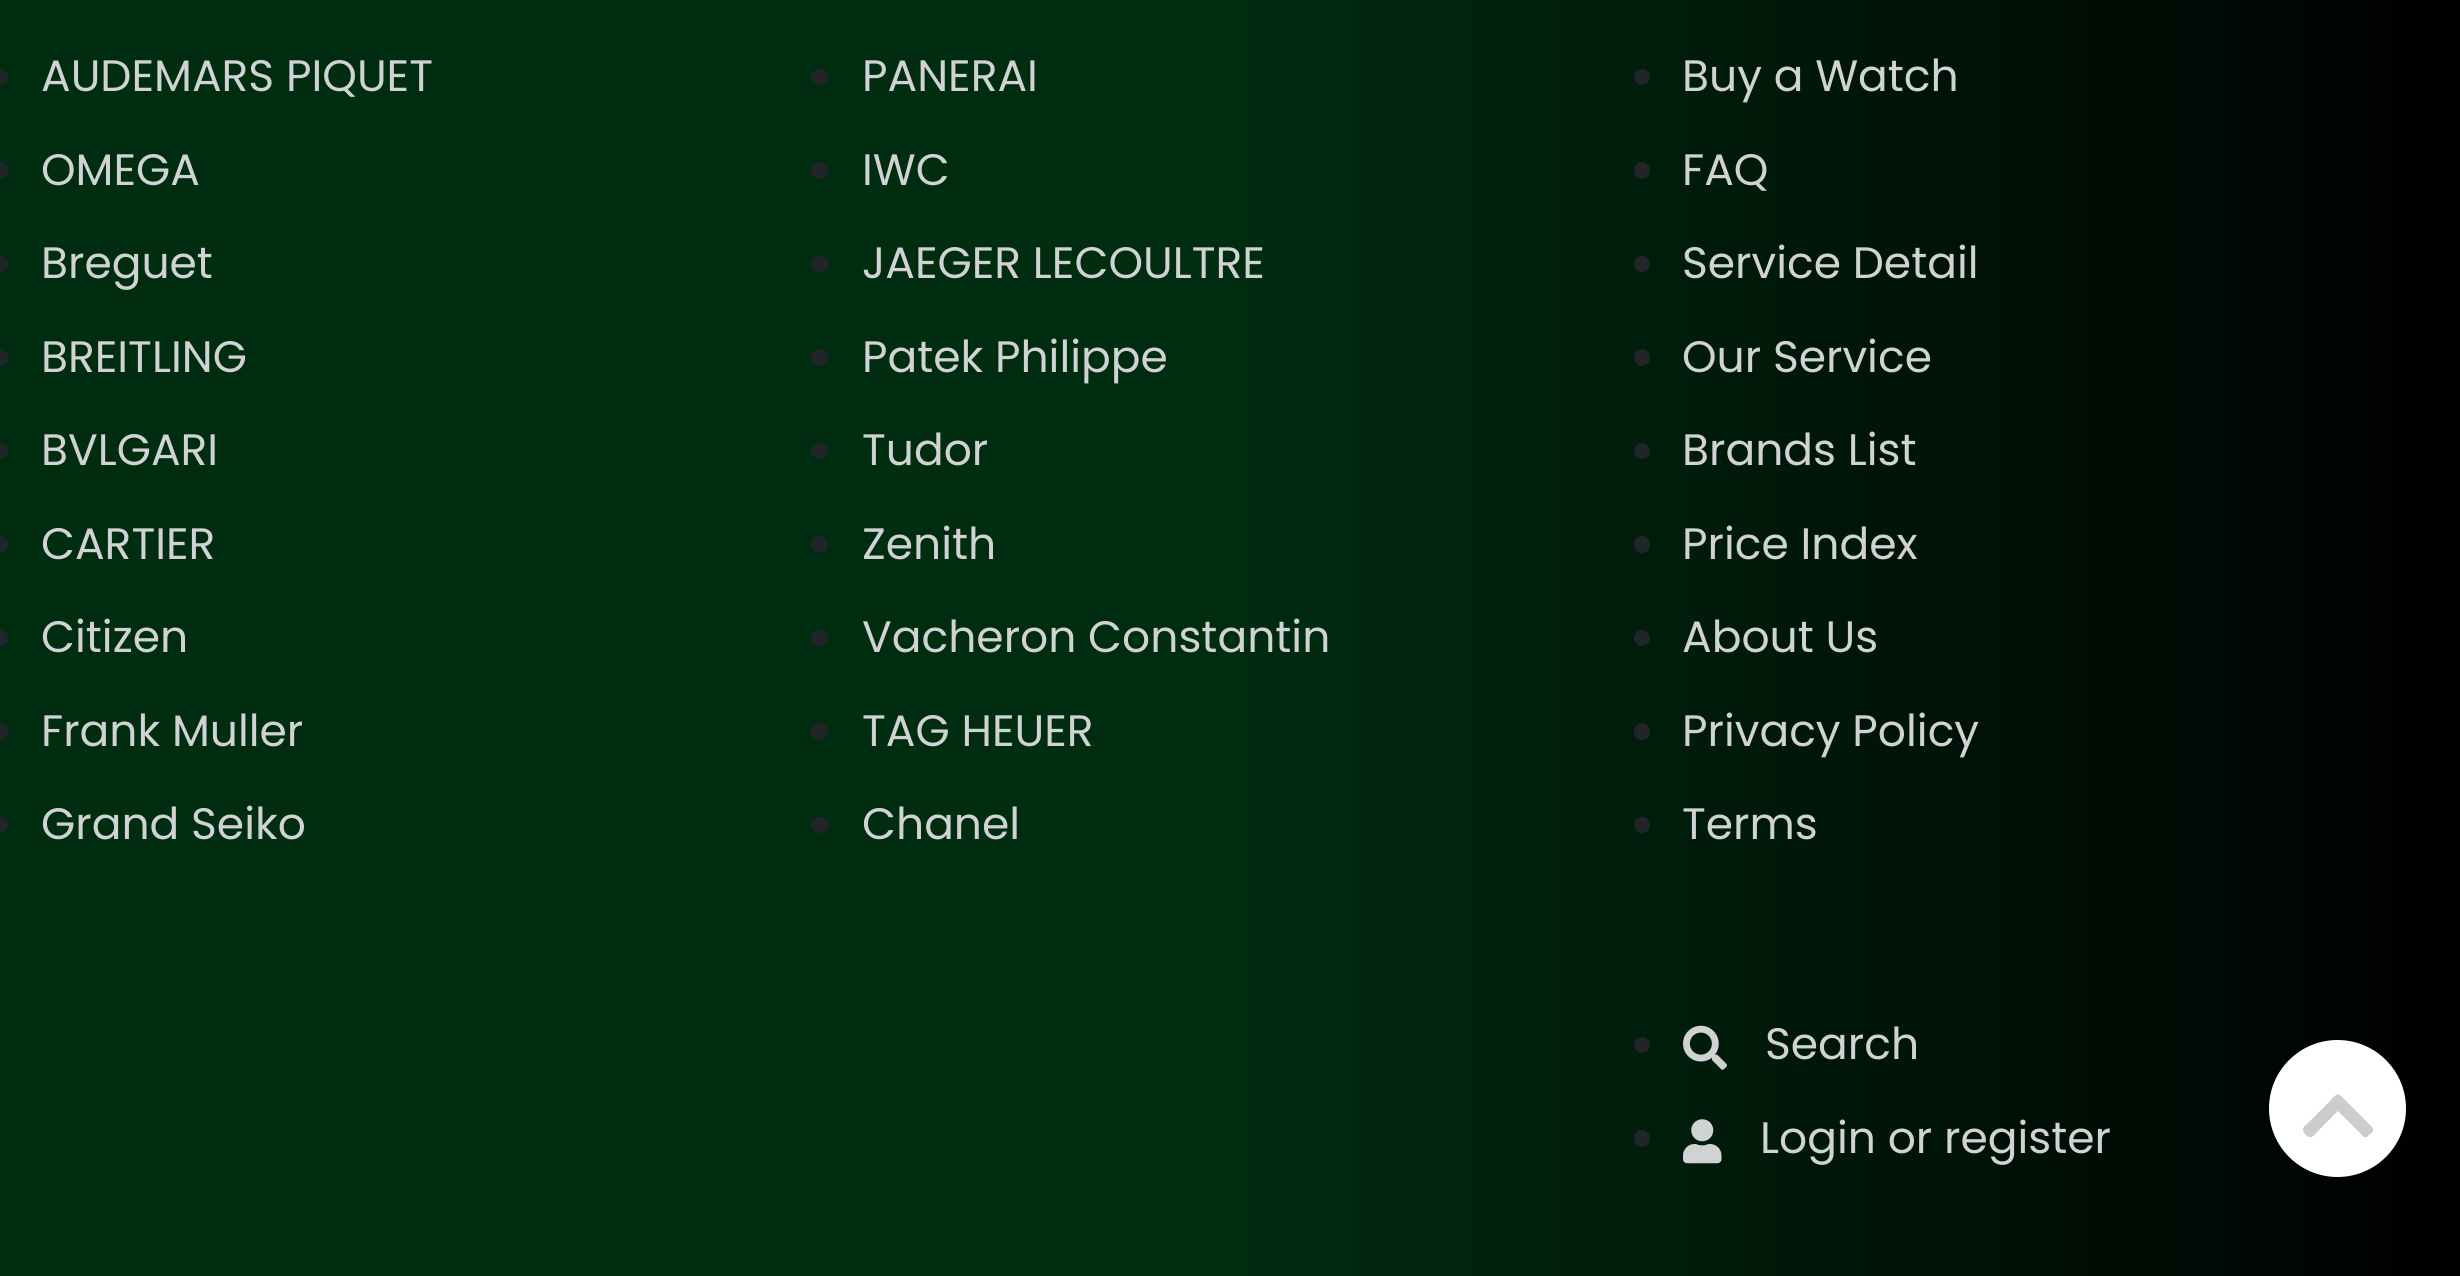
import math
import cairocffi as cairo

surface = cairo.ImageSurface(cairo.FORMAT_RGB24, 2460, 1276)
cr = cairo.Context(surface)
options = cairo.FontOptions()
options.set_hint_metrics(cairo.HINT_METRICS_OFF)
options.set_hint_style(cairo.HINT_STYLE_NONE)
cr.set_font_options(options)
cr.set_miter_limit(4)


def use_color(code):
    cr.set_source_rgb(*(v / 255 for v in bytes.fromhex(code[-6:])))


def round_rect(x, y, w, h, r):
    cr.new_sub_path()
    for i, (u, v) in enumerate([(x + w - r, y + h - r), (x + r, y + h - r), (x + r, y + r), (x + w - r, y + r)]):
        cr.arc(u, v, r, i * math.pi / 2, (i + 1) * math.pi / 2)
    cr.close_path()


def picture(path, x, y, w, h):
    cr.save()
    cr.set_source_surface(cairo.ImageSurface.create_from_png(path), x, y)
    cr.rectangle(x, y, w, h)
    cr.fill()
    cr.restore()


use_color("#ffffff")
cr.paint()
gradient = cairo.LinearGradient(0, 1042, 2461, 1042)
gradient.add_color_stop_rgba(0.5, 0, 0.173, 0.063, 1)
gradient.add_color_stop_rgba(1, 0, 0, 0, 1)
cr.set_source(gradient)
cr.rectangle(0, 0, 2460, 1276)
cr.fill()
use_color("#212529")
cr.arc(0, 77, 8, 0, 2 * math.pi)
cr.fill()
cr.select_font_face("Poppins")
cr.set_font_size(44)
use_color("#d0d2d3")
cr.move_to(41, 91)
cr.show_text("AUDEMARS PIQUET")
use_color("#212529")
round_rect(-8, 162, 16, 17, 8)
cr.fill()
use_color("#d0d2d3")
cr.move_to(41, 185)
cr.show_text("OMEGA")
use_color("#212529")
cr.new_path()
cr.arc(0, 264, 8, 0, 2 * math.pi)
cr.fill()
use_color("#d0d2d3")
cr.move_to(41, 278)
cr.show_text("Breguet")
use_color("#212529")
round_rect(-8, 349, 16, 17, 8)
cr.fill()
use_color("#d0d2d3")
cr.move_to(41, 372)
cr.show_text("BREITLING")
use_color("#212529")
cr.new_path()
cr.arc(0, 451, 8, 0, 2 * math.pi)
cr.fill()
use_color("#d0d2d3")
cr.move_to(41, 465)
cr.show_text("BVLGARI")
use_color("#212529")
round_rect(-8, 536, 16, 17, 8)
cr.fill()
use_color("#d0d2d3")
cr.move_to(41, 559)
cr.show_text("CARTIER")
use_color("#212529")
cr.new_path()
cr.arc(0, 638, 8, 0, 2 * math.pi)
cr.fill()
use_color("#d0d2d3")
cr.move_to(41, 652)
cr.show_text("Citizen")
use_color("#212529")
round_rect(-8, 723, 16, 17, 8)
cr.fill()
use_color("#d0d2d3")
cr.move_to(41, 746)
cr.show_text("Frank Muller")
use_color("#212529")
cr.new_path()
cr.arc(0, 825, 8, 0, 2 * math.pi)
cr.fill()
use_color("#d0d2d3")
cr.move_to(41, 839)
cr.show_text("Grand Seiko")
use_color("#212529")
round_rect(811, 69, 17, 16, 8)
cr.fill()
use_color("#d0d2d3")
cr.move_to(862, 91)
cr.show_text("PANERAI")
use_color("#212529")
cr.new_path()
cr.arc(819.5, 170.5, 8.5, 0, 2 * math.pi)
cr.fill()
use_color("#d0d2d3")
cr.move_to(862, 185)
cr.show_text("IWC")
use_color("#212529")
round_rect(811, 256, 17, 16, 8)
cr.fill()
use_color("#d0d2d3")
cr.move_to(862, 278)
cr.show_text("JAEGER LECOULTRE")
use_color("#212529")
cr.new_path()
cr.arc(819.5, 357.5, 8.5, 0, 2 * math.pi)
cr.fill()
use_color("#d0d2d3")
cr.move_to(862, 372)
cr.show_text("Patek Philippe")
use_color("#212529")
round_rect(811, 443, 17, 16, 8)
cr.fill()
use_color("#d0d2d3")
cr.move_to(862, 465)
cr.show_text("Tudor")
use_color("#212529")
cr.new_path()
cr.arc(819.5, 544.5, 8.5, 0, 2 * math.pi)
cr.fill()
use_color("#d0d2d3")
cr.move_to(862, 559)
cr.show_text("Zenith")
use_color("#212529")
round_rect(811, 630, 17, 16, 8)
cr.fill()
use_color("#d0d2d3")
cr.move_to(862, 652)
cr.show_text("Vacheron Constantin")
use_color("#212529")
cr.new_path()
cr.arc(819.5, 731.5, 8.5, 0, 2 * math.pi)
cr.fill()
use_color("#d0d2d3")
cr.move_to(862, 746)
cr.show_text("TAG HEUER")
use_color("#212529")
round_rect(811, 817, 17, 16, 8)
cr.fill()
use_color("#d0d2d3")
cr.move_to(862, 839)
cr.show_text("Chanel")
use_color("#212529")
cr.new_path()
cr.arc(1642, 77, 8, 0, 2 * math.pi)
cr.fill()
use_color("#d0d2d3")
cr.move_to(1682, 91)
cr.show_text("Buy a Watch")
use_color("#212529")
round_rect(1634, 162, 16, 17, 8)
cr.fill()
use_color("#d0d2d3")
cr.move_to(1682, 185)
cr.show_text("FAQ")
use_color("#212529")
cr.new_path()
cr.arc(1642, 264, 8, 0, 2 * math.pi)
cr.fill()
use_color("#d0d2d3")
cr.move_to(1682, 278)
cr.show_text("Service Detail")
use_color("#212529")
round_rect(1634, 349, 16, 17, 8)
cr.fill()
use_color("#d0d2d3")
cr.move_to(1682, 372)
cr.show_text("Our Service")
use_color("#212529")
cr.new_path()
cr.arc(1642, 451, 8, 0, 2 * math.pi)
cr.fill()
use_color("#d0d2d3")
cr.move_to(1682, 465)
cr.show_text("Brands List")
use_color("#212529")
round_rect(1634, 536, 16, 17, 8)
cr.fill()
use_color("#d0d2d3")
cr.move_to(1682, 559)
cr.show_text("Price Index")
use_color("#212529")
cr.new_path()
cr.arc(1642, 638, 8, 0, 2 * math.pi)
cr.fill()
use_color("#d0d2d3")
cr.move_to(1682, 652)
cr.show_text("About Us")
use_color("#212529")
round_rect(1634, 723, 16, 17, 8)
cr.fill()
use_color("#d0d2d3")
cr.move_to(1682, 746)
cr.show_text("Privacy Policy")
use_color("#212529")
cr.new_path()
cr.arc(1642, 825, 8, 0, 2 * math.pi)
cr.fill()
use_color("#d0d2d3")
cr.move_to(1682, 839)
cr.show_text("Terms")
use_color("#212529")
cr.new_path()
cr.arc(1642, 1045, 8, 0, 2 * math.pi)
cr.fill()
picture("img1.png", 1683, 1025, 44, 45)
use_color("#d0d2d3")
cr.move_to(1765, 1059)
cr.show_text("Search")
use_color("#212529")
round_rect(1634, 1130, 16, 17, 8)
cr.fill()
picture("img2.png", 1683, 1119, 39, 45)
use_color("#d0d2d3")
cr.move_to(1760, 1153)
cr.show_text("Login or register")
use_color("#ffffff")
cr.new_path()
cr.arc(2337.5, 1108.5, 68.5, 0, 2 * math.pi)
cr.fill()
use_color("#cccccc")
cr.new_path()
cr.move_to(2341, 1096)
cr.line_to(2372, 1127)
cr.curve_to(2375, 1130, 2372, 1133, 2369, 1135)
cr.curve_to(2365, 1140, 2363, 1136, 2359, 1132)
cr.line_to(2338, 1111)
cr.line_to(2317, 1132)
cr.curve_to(2315, 1134, 2313, 1138, 2309, 1137)
cr.curve_to(2308, 1137, 2306, 1135, 2305, 1134)
cr.curve_to(2300, 1128, 2305, 1126, 2309, 1122)
cr.line_to(2330, 1101)
cr.curve_to(2332, 1099, 2337, 1091, 2341, 1096)
cr.close_path()
cr.fill()
surface.write_to_png("result.png")
